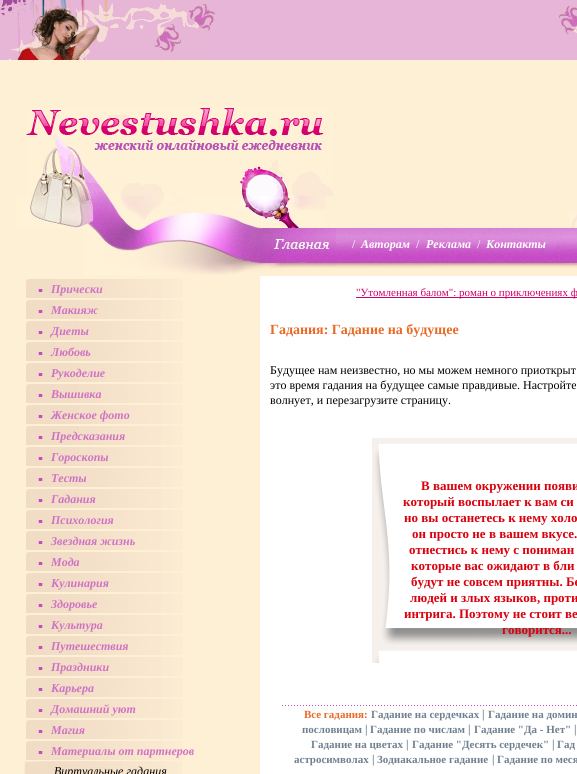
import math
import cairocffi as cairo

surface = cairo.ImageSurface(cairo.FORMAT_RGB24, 577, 774)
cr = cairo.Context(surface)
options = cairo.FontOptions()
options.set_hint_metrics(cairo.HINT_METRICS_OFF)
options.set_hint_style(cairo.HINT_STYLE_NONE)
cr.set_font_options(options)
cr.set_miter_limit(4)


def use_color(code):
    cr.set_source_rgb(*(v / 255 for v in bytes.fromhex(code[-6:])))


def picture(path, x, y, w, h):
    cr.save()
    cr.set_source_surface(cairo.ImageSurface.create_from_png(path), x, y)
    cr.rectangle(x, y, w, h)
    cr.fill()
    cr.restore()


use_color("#fef0d5")
cr.paint()
use_color("#e7b5d7")
cr.rectangle(216, 0, 361, 60)
cr.fill()
picture("img1.png", 0, 0, 216, 60)
picture("img2.png", 559, 5, 18, 29)
picture("img3.png", 26, 108, 307, 88)
picture("img4.png", 16, 196, 310, 32)
picture("img5.png", 570, 212, 7, 16)
picture("img6.png", 84, 228, 252, 47)
picture("img7.png", 336, 228, 241, 41)
cr.select_font_face("Liberation Serif")
cr.set_font_size(12)
use_color("#ffffff")
cr.move_to(352, 248)
cr.show_text("/")
cr.select_font_face("Liberation Serif", cairo.FONT_SLANT_ITALIC, cairo.FONT_WEIGHT_BOLD)
cr.move_to(361, 248)
cr.show_text("Авторам")
cr.select_font_face("Liberation Serif")
cr.move_to(416, 248)
cr.show_text("/")
cr.select_font_face("Liberation Serif", cairo.FONT_SLANT_ITALIC, cairo.FONT_WEIGHT_BOLD)
cr.move_to(426, 248)
cr.show_text("Реклама")
cr.select_font_face("Liberation Serif")
cr.move_to(477, 248)
cr.show_text("/")
cr.select_font_face("Liberation Serif", cairo.FONT_SLANT_ITALIC, cairo.FONT_WEIGHT_BOLD)
cr.move_to(486, 248)
cr.show_text("Контакты")
picture("img8.png", 26, 279, 157, 19)
use_color("#d072c4")
cr.move_to(51, 293)
cr.show_text("Прически")
picture("img8.png", 26, 300, 157, 19)
cr.move_to(51, 314)
cr.show_text("Макияж")
picture("img8.png", 26, 321, 157, 19)
cr.move_to(51, 335)
cr.show_text("Диеты")
picture("img8.png", 26, 342, 157, 19)
cr.move_to(51, 356)
cr.show_text("Любовь")
picture("img8.png", 26, 363, 157, 19)
cr.move_to(51, 377)
cr.show_text("Рукоделие")
picture("img8.png", 26, 384, 157, 19)
cr.move_to(51, 398)
cr.show_text("Вышивка")
picture("img8.png", 26, 405, 157, 19)
cr.move_to(51, 419)
cr.show_text("Женское фото")
picture("img8.png", 26, 426, 157, 19)
cr.move_to(51, 440)
cr.show_text("Предсказания")
picture("img8.png", 26, 447, 157, 19)
cr.move_to(51, 461)
cr.show_text("Гороскопы")
picture("img8.png", 26, 468, 157, 19)
cr.move_to(51, 482)
cr.show_text("Тесты")
picture("img8.png", 26, 489, 157, 19)
cr.move_to(51, 503)
cr.show_text("Гадания")
picture("img8.png", 26, 510, 157, 19)
cr.move_to(51, 524)
cr.show_text("Психология")
picture("img8.png", 26, 531, 157, 19)
cr.move_to(51, 545)
cr.show_text("Звездная жизнь")
picture("img8.png", 26, 552, 157, 19)
cr.move_to(51, 566)
cr.show_text("Мода")
picture("img8.png", 26, 573, 157, 19)
cr.move_to(51, 587)
cr.show_text("Кулинария")
picture("img8.png", 26, 594, 157, 19)
cr.move_to(51, 608)
cr.show_text("Здоровье")
picture("img8.png", 26, 615, 157, 19)
cr.move_to(51, 629)
cr.show_text("Культура")
picture("img8.png", 26, 636, 157, 19)
cr.move_to(51, 650)
cr.show_text("Путешествия")
picture("img8.png", 26, 657, 157, 19)
cr.move_to(51, 671)
cr.show_text("Праздники")
picture("img8.png", 26, 678, 157, 19)
cr.move_to(51, 692)
cr.show_text("Карьера")
picture("img8.png", 26, 699, 157, 19)
cr.move_to(51, 713)
cr.show_text("Домашний уют")
picture("img8.png", 26, 720, 157, 19)
cr.move_to(51, 734)
cr.show_text("Магия")
picture("img8.png", 26, 741, 157, 19)
cr.move_to(51, 755)
cr.show_text("Материалы от партнеров")
picture("img9.png", 24, 761, 158, 13)
cr.select_font_face("Liberation Serif", cairo.FONT_SLANT_ITALIC)
use_color("#000000")
cr.move_to(54, 775)
cr.show_text("Виртуальные гадания")
use_color("#ffffff")
cr.rectangle(260, 276, 317, 498)
cr.fill()
use_color("#cf006a")
cr.rectangle(356, 297, 221, 1)
cr.fill()
cr.select_font_face("Liberation Serif")
cr.set_font_size(11)
cr.move_to(356, 296)
cr.show_text("\"Утомленная балом\": роман о приключениях ф")
cr.select_font_face("Liberation Serif", cairo.FONT_SLANT_NORMAL, cairo.FONT_WEIGHT_BOLD)
cr.set_font_size(14)
use_color("#e86a27")
cr.move_to(270, 334)
cr.show_text("Гадания: Гадание на будущее")
cr.select_font_face("Liberation Serif")
cr.set_font_size(12)
use_color("#000000")
cr.move_to(270, 374)
cr.show_text("Будущее нам неизвестно, но мы можем немного приоткрыт")
cr.move_to(270, 389)
cr.show_text("это время гадания на будущее самые правдивые. Настройте")
cr.move_to(270, 404)
cr.show_text("волнует, и перезагрузите страницу.")
picture("img10.png", 372, 438, 205, 225)
cr.select_font_face("Liberation Serif", cairo.FONT_SLANT_NORMAL, cairo.FONT_WEIGHT_BOLD)
cr.set_font_size(13)
use_color("#da000d")
cr.move_to(421, 490)
cr.show_text("В вашем окружении появи")
cr.move_to(403, 506)
cr.show_text("который воспылает к вам си")
cr.move_to(404, 522)
cr.show_text("но вы останетесь к нему холо")
cr.move_to(412, 538)
cr.show_text("он просто не в вашем вкусе.")
cr.move_to(409, 554)
cr.show_text("отнестись к нему с пониман")
cr.move_to(411, 570)
cr.show_text("которые вас ожидают в бли")
cr.move_to(411, 586)
cr.show_text("будут не совсем приятны. Бе")
cr.move_to(410, 602)
cr.show_text("людей и злых языков, проти")
cr.move_to(404, 618)
cr.show_text("интрига. Поэтому не стоит ве")
cr.move_to(502, 634)
cr.show_text("говорится...")
picture("img11.png", 282, 705, 295, 2)
cr.set_font_size(11)
use_color("#e86a27")
cr.move_to(304, 718)
cr.show_text("Все гадания:")
use_color("#708090")
cr.move_to(371, 718)
cr.show_text("Гадание на сердечках")
cr.select_font_face("Liberation Serif")
cr.set_font_size(12)
use_color("#455a6f")
cr.move_to(482, 718)
cr.show_text("|")
cr.select_font_face("Liberation Serif", cairo.FONT_SLANT_NORMAL, cairo.FONT_WEIGHT_BOLD)
cr.set_font_size(11)
use_color("#708090")
cr.move_to(488, 718)
cr.show_text("Гадание на домин")
cr.move_to(302, 733)
cr.show_text("пословицам")
cr.select_font_face("Liberation Serif")
cr.set_font_size(12)
use_color("#455a6f")
cr.move_to(365, 733)
cr.show_text("|")
cr.select_font_face("Liberation Serif", cairo.FONT_SLANT_NORMAL, cairo.FONT_WEIGHT_BOLD)
cr.set_font_size(11)
use_color("#708090")
cr.move_to(370, 733)
cr.show_text("Гадание по числам")
cr.select_font_face("Liberation Serif")
cr.set_font_size(12)
use_color("#455a6f")
cr.move_to(468, 733)
cr.show_text("|")
cr.select_font_face("Liberation Serif", cairo.FONT_SLANT_NORMAL, cairo.FONT_WEIGHT_BOLD)
cr.set_font_size(11)
use_color("#708090")
cr.move_to(474, 733)
cr.show_text("Гадание \"Да - Нет\"")
cr.select_font_face("Liberation Serif")
cr.set_font_size(12)
use_color("#455a6f")
cr.move_to(574, 733)
cr.show_text("|")
cr.select_font_face("Liberation Serif", cairo.FONT_SLANT_NORMAL, cairo.FONT_WEIGHT_BOLD)
cr.set_font_size(11)
use_color("#708090")
cr.move_to(311, 748)
cr.show_text("Гадание на цветах")
cr.select_font_face("Liberation Serif")
cr.set_font_size(12)
use_color("#455a6f")
cr.move_to(406, 748)
cr.show_text("|")
cr.select_font_face("Liberation Serif", cairo.FONT_SLANT_NORMAL, cairo.FONT_WEIGHT_BOLD)
cr.set_font_size(11)
use_color("#708090")
cr.move_to(412, 748)
cr.show_text("Гадание \"Десять сердечек\"")
cr.select_font_face("Liberation Serif")
cr.set_font_size(12)
use_color("#455a6f")
cr.move_to(552, 748)
cr.show_text("|")
cr.select_font_face("Liberation Serif", cairo.FONT_SLANT_NORMAL, cairo.FONT_WEIGHT_BOLD)
cr.set_font_size(11)
use_color("#708090")
cr.move_to(557, 748)
cr.show_text("Гад")
cr.move_to(294, 763)
cr.show_text("астросимволах")
cr.select_font_face("Liberation Serif")
cr.set_font_size(12)
use_color("#455a6f")
cr.move_to(372, 763)
cr.show_text("|")
cr.select_font_face("Liberation Serif", cairo.FONT_SLANT_NORMAL, cairo.FONT_WEIGHT_BOLD)
cr.set_font_size(11)
use_color("#708090")
cr.move_to(377, 763)
cr.show_text("Зодиакальное гадание")
cr.select_font_face("Liberation Serif")
cr.set_font_size(12)
use_color("#455a6f")
cr.move_to(492, 763)
cr.show_text("|")
cr.select_font_face("Liberation Serif", cairo.FONT_SLANT_NORMAL, cairo.FONT_WEIGHT_BOLD)
cr.set_font_size(11)
use_color("#708090")
cr.move_to(497, 763)
cr.show_text("Гадание по меся")
surface.write_to_png("result.png")
